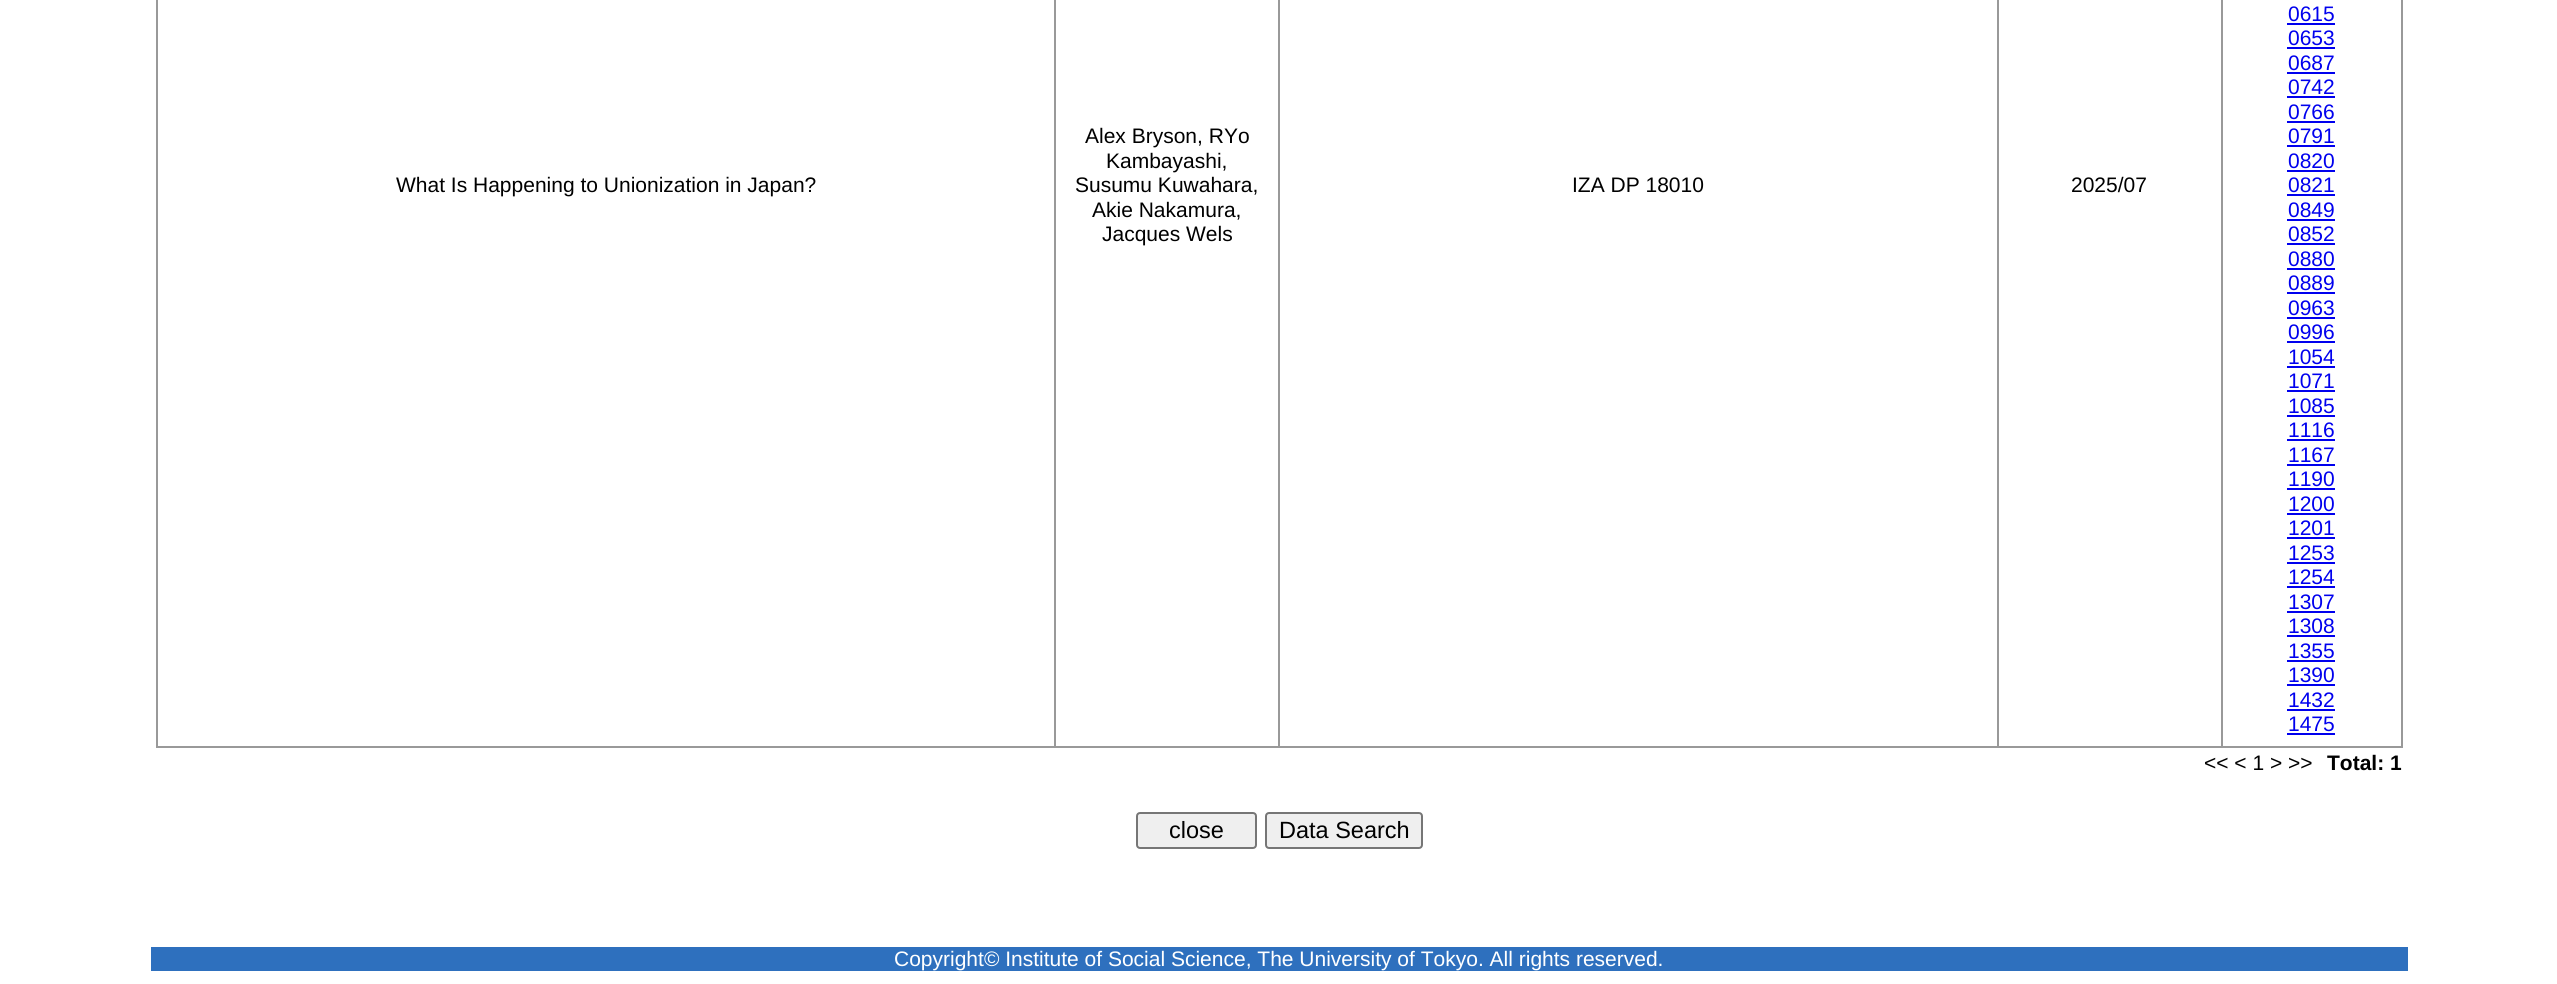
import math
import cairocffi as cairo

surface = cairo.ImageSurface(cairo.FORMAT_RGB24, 2557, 984)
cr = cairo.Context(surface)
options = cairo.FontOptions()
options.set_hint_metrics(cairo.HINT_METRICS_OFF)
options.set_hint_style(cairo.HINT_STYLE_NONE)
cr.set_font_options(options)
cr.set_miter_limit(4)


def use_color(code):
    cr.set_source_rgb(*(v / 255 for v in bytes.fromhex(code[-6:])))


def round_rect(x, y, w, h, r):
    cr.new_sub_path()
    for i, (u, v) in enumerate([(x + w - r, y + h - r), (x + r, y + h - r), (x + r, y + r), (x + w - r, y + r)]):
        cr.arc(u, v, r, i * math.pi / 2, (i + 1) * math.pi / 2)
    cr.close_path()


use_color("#ffffff")
cr.paint()
use_color("#999999")
cr.rectangle(2401, 0, 2, 747)
cr.fill()
cr.rectangle(156, 746, 2247, 2)
cr.fill()
cr.rectangle(156, 0, 2, 747)
cr.fill()
cr.select_font_face("Liberation Sans")
cr.set_font_size(21)
use_color("#000000")
cr.move_to(396, 192)
cr.show_text("What Is Happening to Unionization in Japan?")
use_color("#999999")
cr.rectangle(1054, 0, 2, 747)
cr.fill()
use_color("#000000")
cr.move_to(1085, 143)
cr.show_text("Alex Bryson, RYo")
cr.move_to(1106, 168)
cr.show_text("Kambayashi,")
cr.move_to(1075, 192)
cr.show_text("Susumu Kuwahara,")
cr.move_to(1092, 217)
cr.show_text("Akie Nakamura,")
cr.move_to(1102, 241)
cr.show_text("Jacques Wels")
use_color("#999999")
cr.rectangle(1278, 0, 2, 747)
cr.fill()
use_color("#000000")
cr.move_to(1572, 192)
cr.show_text("IZA DP 18010")
use_color("#999999")
cr.rectangle(1997, 0, 2, 747)
cr.fill()
use_color("#000000")
cr.move_to(2071, 192)
cr.show_text("2025/07")
use_color("#999999")
cr.rectangle(2221, 0, 2, 747)
cr.fill()
use_color("#0000ee")
cr.move_to(2288, 21)
cr.show_text("0615")
cr.rectangle(2287, 23, 48, 2)
cr.fill()
cr.move_to(2288, 45)
cr.show_text("0653")
cr.rectangle(2287, 47, 48, 2)
cr.fill()
cr.move_to(2288, 70)
cr.show_text("0687")
cr.rectangle(2287, 72, 48, 2)
cr.fill()
cr.move_to(2288, 94)
cr.show_text("0742")
cr.rectangle(2287, 96, 48, 2)
cr.fill()
cr.move_to(2288, 119)
cr.show_text("0766")
cr.rectangle(2287, 121, 48, 2)
cr.fill()
cr.move_to(2288, 143)
cr.show_text("0791")
cr.rectangle(2287, 145, 48, 2)
cr.fill()
cr.move_to(2288, 168)
cr.show_text("0820")
cr.rectangle(2287, 170, 48, 2)
cr.fill()
cr.move_to(2288, 192)
cr.show_text("0821")
cr.rectangle(2287, 194, 48, 2)
cr.fill()
cr.move_to(2288, 217)
cr.show_text("0849")
cr.rectangle(2287, 219, 48, 2)
cr.fill()
cr.move_to(2288, 241)
cr.show_text("0852")
cr.rectangle(2287, 243, 48, 2)
cr.fill()
cr.move_to(2288, 266)
cr.show_text("0880")
cr.rectangle(2287, 268, 48, 2)
cr.fill()
cr.move_to(2288, 290)
cr.show_text("0889")
cr.rectangle(2287, 292, 48, 2)
cr.fill()
cr.move_to(2288, 315)
cr.show_text("0963")
cr.rectangle(2287, 317, 48, 2)
cr.fill()
cr.move_to(2288, 339)
cr.show_text("0996")
cr.rectangle(2287, 341, 48, 2)
cr.fill()
cr.move_to(2288, 364)
cr.show_text("1054")
cr.rectangle(2287, 366, 48, 2)
cr.fill()
cr.move_to(2288, 388)
cr.show_text("1071")
cr.rectangle(2287, 390, 48, 2)
cr.fill()
cr.move_to(2288, 413)
cr.show_text("1085")
cr.rectangle(2287, 415, 48, 2)
cr.fill()
cr.move_to(2288, 437)
cr.show_text("1116")
cr.rectangle(2287, 439, 48, 2)
cr.fill()
cr.move_to(2288, 462)
cr.show_text("1167")
cr.rectangle(2287, 464, 48, 2)
cr.fill()
cr.move_to(2288, 486)
cr.show_text("1190")
cr.rectangle(2287, 488, 48, 2)
cr.fill()
cr.move_to(2288, 511)
cr.show_text("1200")
cr.rectangle(2287, 513, 48, 2)
cr.fill()
cr.move_to(2288, 535)
cr.show_text("1201")
cr.rectangle(2287, 537, 48, 2)
cr.fill()
cr.move_to(2288, 560)
cr.show_text("1253")
cr.rectangle(2287, 562, 48, 2)
cr.fill()
cr.move_to(2288, 584)
cr.show_text("1254")
cr.rectangle(2287, 586, 48, 2)
cr.fill()
cr.move_to(2288, 609)
cr.show_text("1307")
cr.rectangle(2287, 611, 48, 2)
cr.fill()
cr.move_to(2288, 633)
cr.show_text("1308")
cr.rectangle(2287, 635, 48, 2)
cr.fill()
cr.move_to(2288, 658)
cr.show_text("1355")
cr.rectangle(2287, 660, 48, 2)
cr.fill()
cr.move_to(2288, 682)
cr.show_text("1390")
cr.rectangle(2287, 684, 48, 2)
cr.fill()
cr.move_to(2288, 707)
cr.show_text("1432")
cr.rectangle(2287, 709, 48, 2)
cr.fill()
cr.move_to(2288, 731)
cr.show_text("1475")
cr.rectangle(2287, 733, 48, 2)
cr.fill()
use_color("#000000")
cr.move_to(2204, 770)
cr.show_text("<< < 1 > >>")
cr.select_font_face("Liberation Sans", cairo.FONT_SLANT_NORMAL, cairo.FONT_WEIGHT_BOLD)
cr.move_to(2327, 770)
cr.show_text("Total: 1")
use_color("#efefef")
round_rect(1137, 813, 119, 35, 3)
cr.fill_preserve()
use_color("#767676")
cr.stroke()
cr.select_font_face("Liberation Sans")
cr.set_font_size(23.5)
use_color("#000000")
cr.move_to(1169, 838)
cr.show_text("close")
use_color("#efefef")
round_rect(1266, 813, 156, 35, 3)
cr.fill_preserve()
use_color("#767676")
cr.stroke()
use_color("#000000")
cr.move_to(1279, 838)
cr.show_text("Data Search")
use_color("#2e70be")
cr.rectangle(151, 947, 2257, 24)
cr.fill()
cr.set_font_size(21)
use_color("#ffffff")
cr.move_to(894, 966)
cr.show_text("Copyright© Institute of Social Science, The University of Tokyo. All rights reserved.")
surface.write_to_png("result.png")
